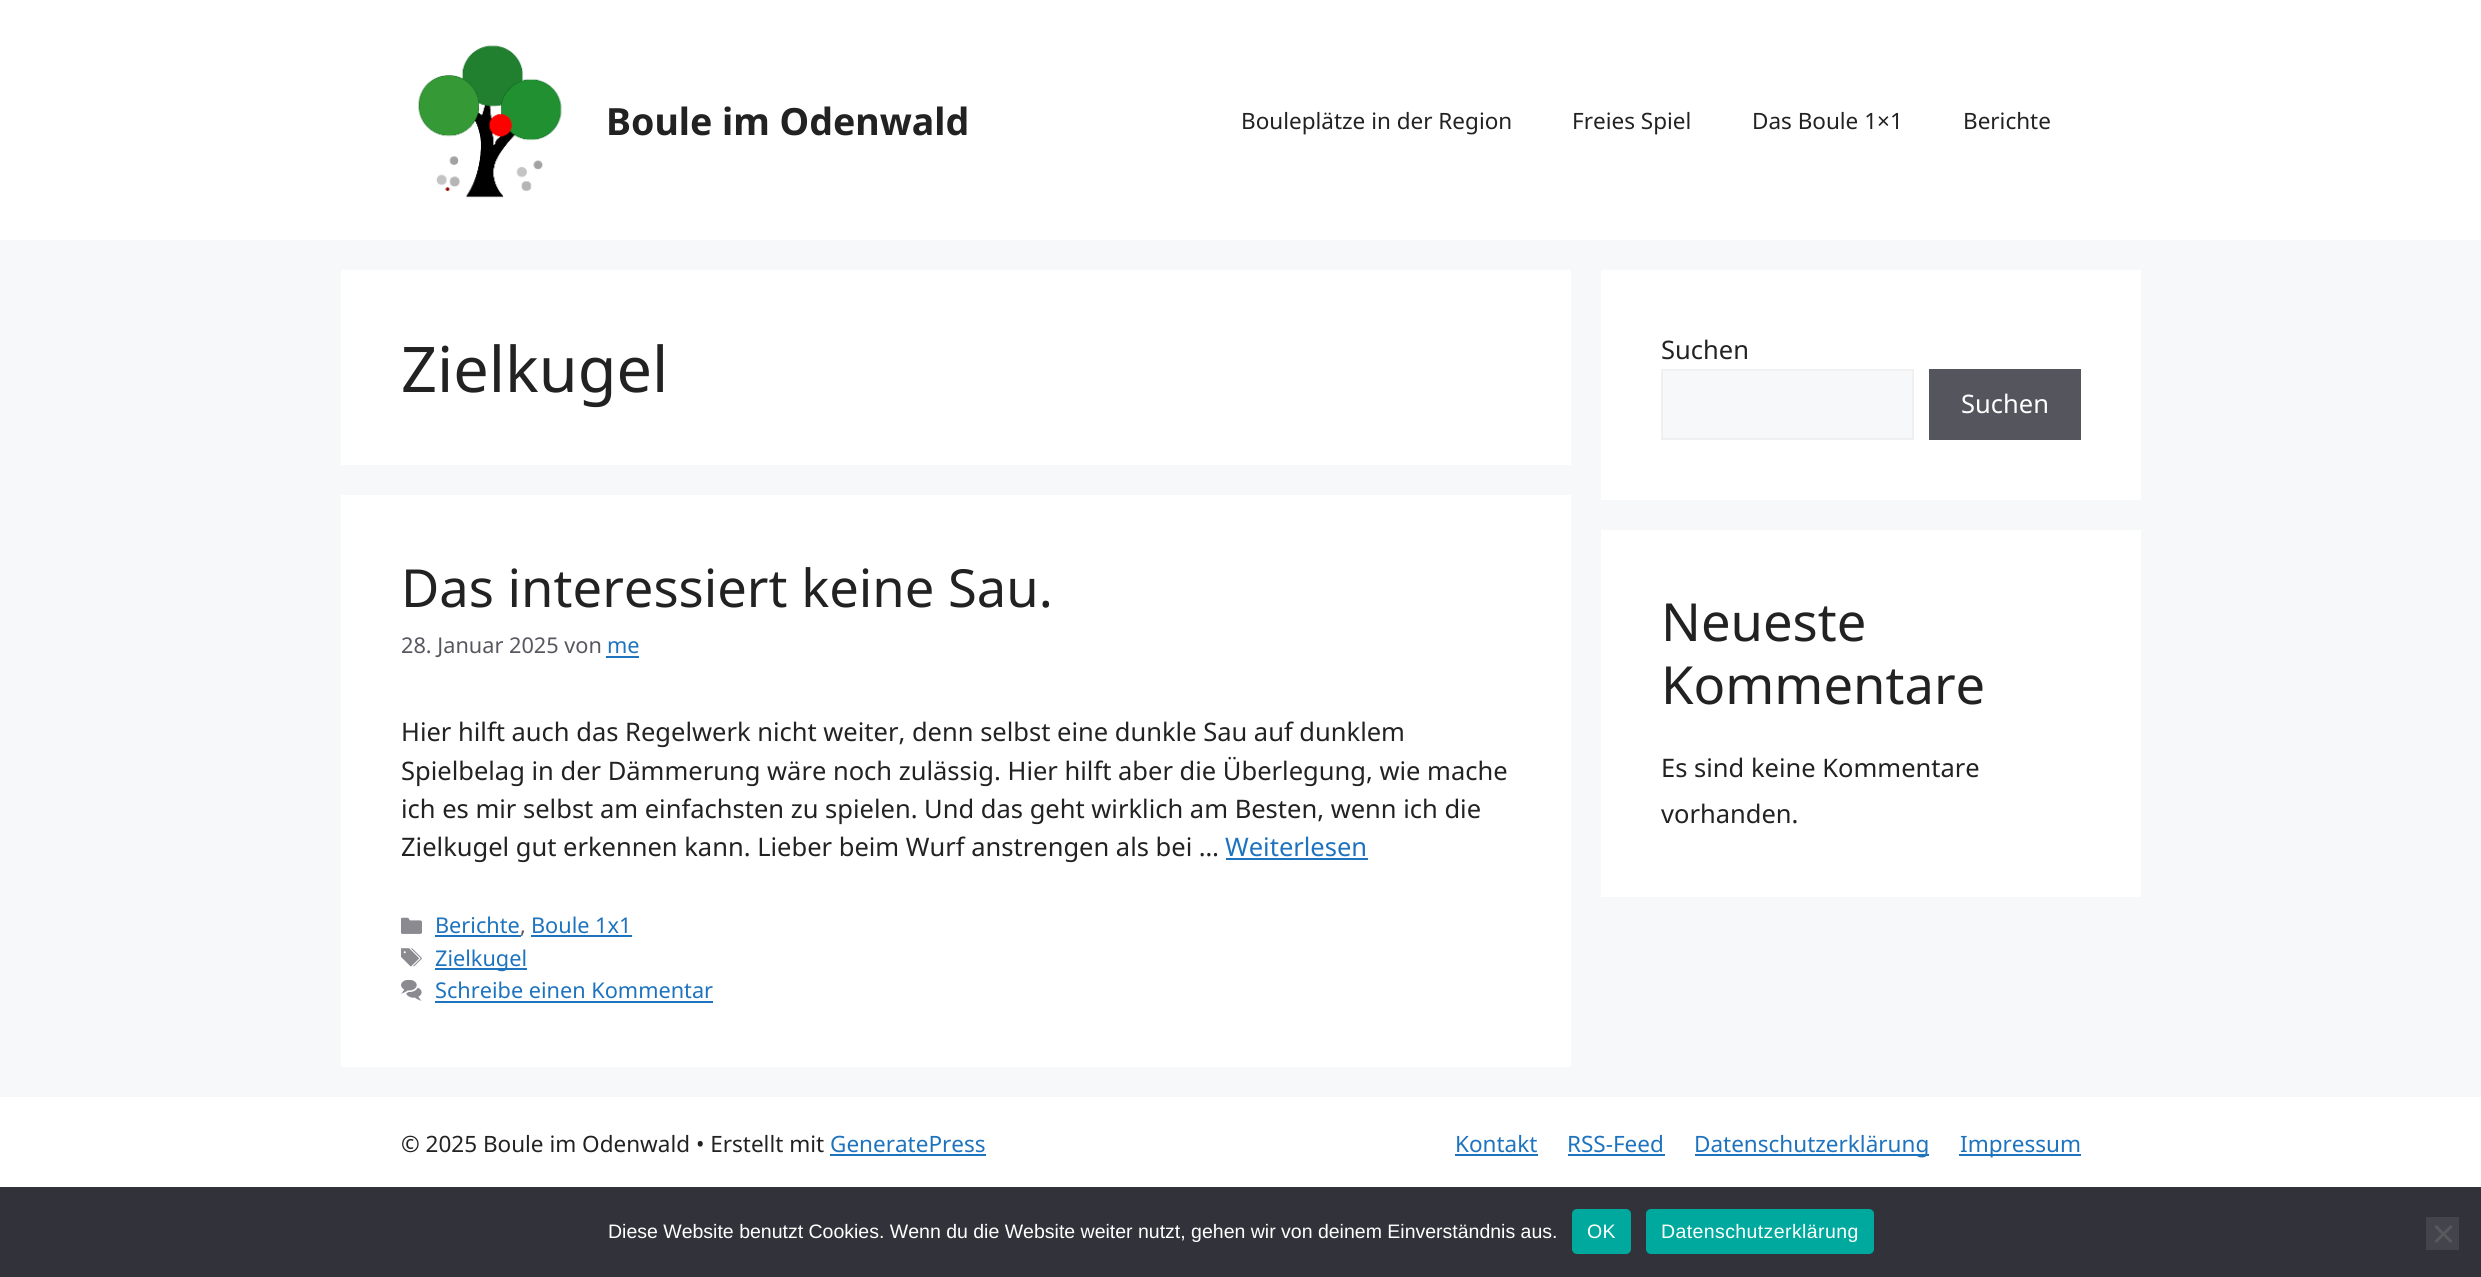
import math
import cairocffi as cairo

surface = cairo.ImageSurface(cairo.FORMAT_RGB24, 2481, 1277)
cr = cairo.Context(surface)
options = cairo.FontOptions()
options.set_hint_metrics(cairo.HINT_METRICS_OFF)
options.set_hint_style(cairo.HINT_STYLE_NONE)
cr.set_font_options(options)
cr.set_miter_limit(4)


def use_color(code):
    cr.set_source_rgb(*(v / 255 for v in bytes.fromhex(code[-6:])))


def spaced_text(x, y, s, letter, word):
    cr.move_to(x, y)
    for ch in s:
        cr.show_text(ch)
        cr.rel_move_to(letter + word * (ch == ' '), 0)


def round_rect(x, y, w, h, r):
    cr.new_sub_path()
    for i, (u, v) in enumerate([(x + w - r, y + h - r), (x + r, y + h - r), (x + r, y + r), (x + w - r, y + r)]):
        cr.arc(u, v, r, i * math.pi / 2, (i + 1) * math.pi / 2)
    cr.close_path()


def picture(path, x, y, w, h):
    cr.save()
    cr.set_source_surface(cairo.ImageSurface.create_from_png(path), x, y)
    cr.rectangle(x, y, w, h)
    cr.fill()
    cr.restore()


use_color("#f7f8f9")
cr.paint()
use_color("#ffffff")
cr.rectangle(0, 0, 2481, 240)
cr.fill()
picture("img1.png", 418, 45, 144, 153)
cr.select_font_face("Noto Sans", cairo.FONT_SLANT_NORMAL, cairo.FONT_WEIGHT_BOLD)
cr.set_font_size(37.5)
use_color("#222222")
cr.move_to(606, 135)
cr.show_text("Boule im Odenwald")
cr.select_font_face("Noto Sans")
cr.set_font_size(22.5)
cr.move_to(1241, 129)
cr.show_text("Bouleplätze in der Region")
cr.move_to(1572, 129)
cr.show_text("Freies Spiel")
cr.move_to(1752, 129)
cr.show_text("Das Boule 1×1")
cr.move_to(1963, 129)
cr.show_text("Berichte")
use_color("#ffffff")
cr.rectangle(341, 270, 1230, 195)
cr.fill()
cr.set_font_size(63)
use_color("#222222")
cr.move_to(401, 392)
cr.show_text("Zielkugel")
use_color("#ffffff")
cr.rectangle(341, 495, 1230, 572)
cr.fill()
cr.set_font_size(52.5)
use_color("#222222")
cr.move_to(401, 607)
cr.show_text("Das interessiert keine Sau.")
cr.set_font_size(21.7)
use_color("#575760")
cr.move_to(401, 653)
cr.show_text("28. Januar 2025 von")
use_color("#1e73be")
cr.move_to(607, 653)
cr.show_text("me")
cr.rectangle(606, 656, 33, 2)
cr.fill()
cr.set_font_size(25.5)
use_color("#222222")
cr.move_to(401, 741)
cr.show_text("Hier hilft auch das Regelwerk nicht weiter, denn selbst eine dunkle Sau auf dunklem")
cr.move_to(401, 780)
cr.show_text("Spielbelag in der Dämmerung wäre noch zulässig. Hier hilft aber die Überlegung, wie mache")
cr.move_to(401, 818)
cr.show_text("ich es mir selbst am einfachsten zu spielen. Und das geht wirklich am Besten, wenn ich die")
cr.move_to(401, 856)
cr.show_text("Zielkugel gut erkennen kann. Lieber beim Wurf anstrengen als bei …")
use_color("#1e73be")
cr.move_to(1225, 856)
cr.show_text("Weiterlesen")
cr.rectangle(1226, 858, 142, 2)
cr.fill()
picture("img2.png", 401, 917, 21, 17)
cr.set_font_size(21.7)
cr.move_to(435, 933)
cr.show_text("Berichte")
cr.rectangle(435, 935, 86, 2)
cr.fill()
use_color("#575760")
cr.move_to(520, 933)
cr.show_text(",")
use_color("#1e73be")
cr.move_to(531, 933)
cr.show_text("Boule 1x1")
cr.rectangle(531, 935, 101, 2)
cr.fill()
picture("img3.png", 401, 948, 21, 19)
cr.rectangle(435, 968, 92, 2)
cr.fill()
cr.move_to(435, 966)
cr.show_text("Zielkugel")
picture("img4.png", 401, 980, 21, 21)
cr.move_to(435, 998)
cr.show_text("Schreibe einen Kommentar")
cr.rectangle(435, 1001, 278, 2)
cr.fill()
use_color("#ffffff")
cr.rectangle(1601, 270, 540, 230)
cr.fill()
cr.set_font_size(25.5)
use_color("#222222")
cr.move_to(1661, 359)
cr.show_text("Suchen")
use_color("#f7f8f9")
cr.rectangle(1662, 370, 251, 69)
cr.fill_preserve()
use_color("#f0f0f0")
cr.stroke()
use_color("#55555e")
cr.rectangle(1929, 369, 152, 71)
cr.fill()
use_color("#ffffff")
cr.move_to(1961, 413)
cr.show_text("Suchen")
cr.rectangle(1601, 530, 540, 367)
cr.fill()
cr.set_font_size(52.5)
use_color("#222222")
cr.move_to(1661, 641)
cr.show_text("Neueste")
cr.move_to(1661, 704)
cr.show_text("Kommentare")
cr.set_font_size(25.5)
cr.move_to(1661, 777)
cr.show_text("Es sind keine Kommentare")
cr.move_to(1661, 823)
cr.show_text("vorhanden.")
use_color("#ffffff")
cr.rectangle(0, 1097, 2481, 90)
cr.fill()
cr.set_font_size(22.5)
use_color("#222222")
cr.move_to(401, 1152)
cr.show_text("© 2025 Boule im Odenwald • Erstellt mit")
use_color("#1e73be")
cr.move_to(830, 1152)
cr.show_text("GeneratePress")
cr.rectangle(830, 1154, 156, 2)
cr.fill()
cr.move_to(1455, 1152)
cr.show_text("Kontakt")
cr.rectangle(1455, 1154, 83, 2)
cr.fill()
cr.move_to(1567, 1152)
cr.show_text("RSS-Feed")
cr.rectangle(1568, 1154, 97, 2)
cr.fill()
cr.rectangle(1695, 1154, 234, 2)
cr.fill()
cr.move_to(1694, 1152)
cr.show_text("Datenschutzerklärung")
cr.rectangle(1959, 1154, 122, 2)
cr.fill()
cr.move_to(1960, 1152)
cr.show_text("Impressum")
use_color("#32323a")
cr.rectangle(0, 1187, 2481, 90)
cr.fill()
cr.select_font_face("Liberation Sans")
cr.set_font_size(19.5)
use_color("#ffffff")
cr.move_to(608, 1238)
cr.show_text("Diese Website benutzt Cookies. Wenn du die Website weiter nutzt, gehen wir von deinem Einverständnis aus.")
use_color("#00a99d")
round_rect(1572, 1209, 59, 45, 5)
cr.fill()
use_color("#ffffff")
spaced_text(1587, 1238, "OK", 0.4, 0)
use_color("#00a99d")
round_rect(1646, 1209, 228, 45, 5)
cr.fill()
use_color("#ffffff")
spaced_text(1661, 1238, "Datenschutzerklärung", 0.4, 0)
use_color("#44444c")
cr.rectangle(2426, 1217, 33, 33)
cr.fill()
use_color("#59595d")
cr.new_path()
cr.move_to(2450.5, 1225)
cr.line_to(2452.5, 1227)
cr.line_to(2436.5, 1243)
cr.line_to(2434.5, 1241)
cr.close_path()
cr.fill()
cr.new_path()
cr.move_to(2434.5, 1227)
cr.line_to(2436.5, 1225)
cr.line_to(2452.5, 1241)
cr.line_to(2450.5, 1243)
cr.close_path()
cr.fill()
surface.write_to_png("result.png")
